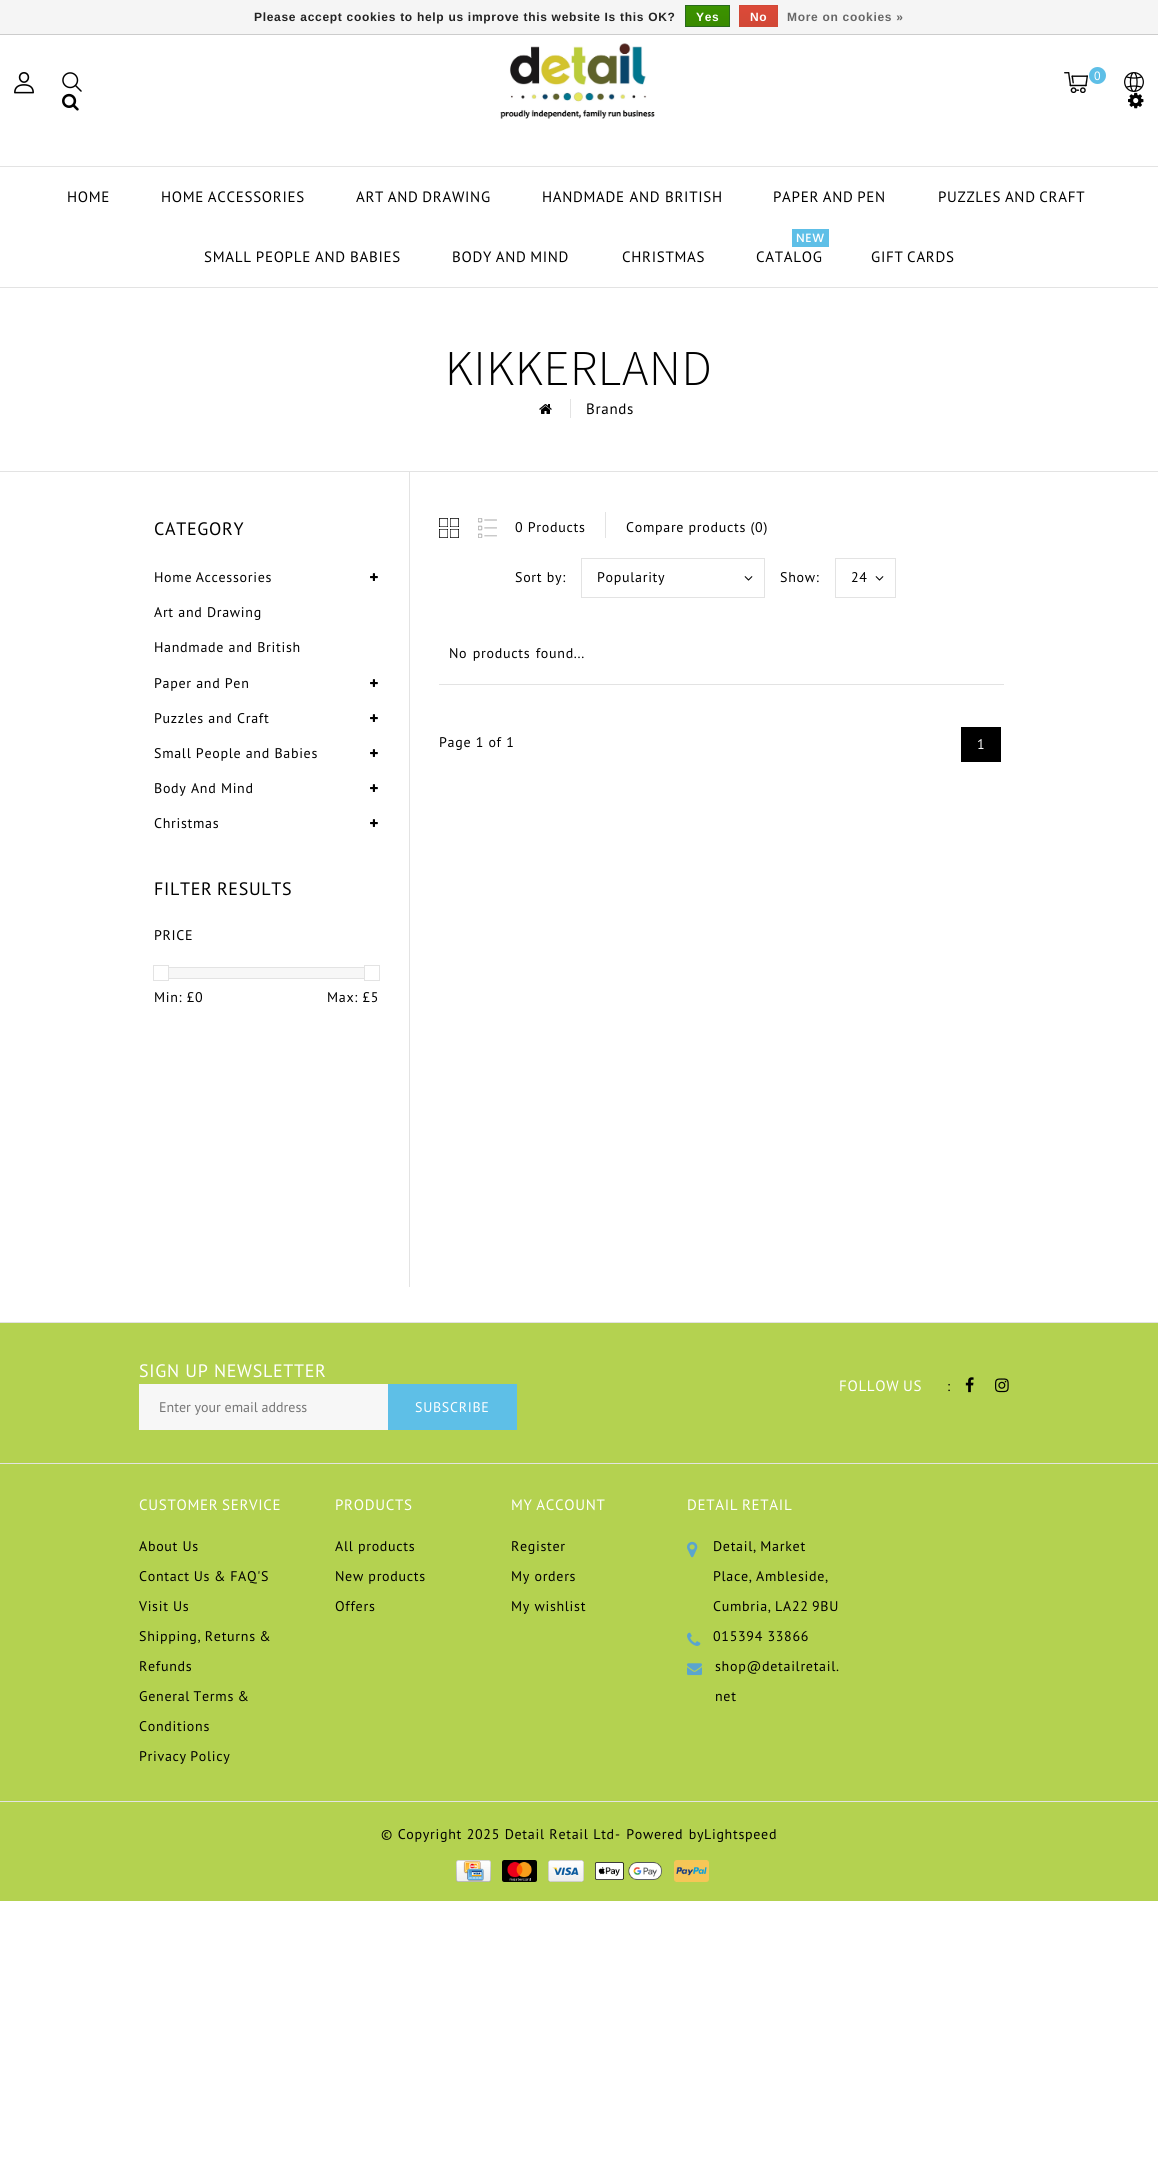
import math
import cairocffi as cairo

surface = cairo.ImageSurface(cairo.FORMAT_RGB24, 1158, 2173)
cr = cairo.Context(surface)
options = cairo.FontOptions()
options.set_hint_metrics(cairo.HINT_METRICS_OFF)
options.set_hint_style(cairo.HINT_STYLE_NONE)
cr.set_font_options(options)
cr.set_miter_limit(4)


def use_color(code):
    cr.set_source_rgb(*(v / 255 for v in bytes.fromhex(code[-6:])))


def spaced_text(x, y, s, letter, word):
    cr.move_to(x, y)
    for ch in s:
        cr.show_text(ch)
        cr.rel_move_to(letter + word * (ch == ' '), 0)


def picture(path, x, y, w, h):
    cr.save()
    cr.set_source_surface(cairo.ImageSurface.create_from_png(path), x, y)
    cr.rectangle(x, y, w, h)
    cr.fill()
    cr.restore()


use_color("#ffffff")
cr.paint()
use_color("#f5f5f5")
cr.rectangle(0, 0, 1158, 34)
cr.fill()
use_color("#cccccc")
cr.rectangle(0, 34, 1158, 1)
cr.fill()
cr.select_font_face("Liberation Sans", cairo.FONT_SLANT_NORMAL, cairo.FONT_WEIGHT_BOLD)
cr.set_font_size(12)
use_color("#222222")
spaced_text(254, 21, "Please accept cookies to help us improve this website Is this OK?", 0.7, 0)
gradient = cairo.LinearGradient(708, 6, 708, 26)
gradient.add_color_stop_rgba(0, 0.235, 0.576, 0, 1)
gradient.add_color_stop_rgba(1, 0.224, 0.541, 0, 1)
cr.set_source(gradient)
cr.rectangle(686, 6, 43, 20)
cr.fill()
cr.rectangle(685.5, 5.5, 44, 21)
use_color("#29691d")
cr.set_line_width(1)
cr.stroke()
use_color("#ffffff")
spaced_text(696, 21, "Yes", 0.7, 0)
gradient = cairo.LinearGradient(759, 6, 759, 26)
gradient.add_color_stop_rgba(0, 0.863, 0.29, 0.22, 1)
gradient.add_color_stop_rgba(1, 0.82, 0.282, 0.212, 1)
cr.set_source(gradient)
cr.rectangle(740, 6, 37, 20)
cr.fill()
cr.rectangle(739.5, 5.5, 38, 21)
use_color("#d14836")
cr.stroke()
use_color("#ffffff")
spaced_text(750, 21, "No", 0.7, 0)
use_color("#666666")
spaced_text(787, 21, "More on cookies »", 0.7, 0)
use_color("#e3e3e3")
cr.rectangle(0, 166, 1158, 1)
cr.fill()
picture("img1.png", 14, 72, 20, 22)
picture("img2.png", 62, 72, 20, 20)
picture("img3.png", 62, 93, 17, 18)
picture("img4.png", 500, 43, 155, 76)
picture("img5.png", 1064, 72, 24, 21)
use_color("#5ebfe7")
cr.arc(1097.5, 75.5, 8.5, 0, 2 * math.pi)
cr.fill()
cr.select_font_face("PT Sans")
use_color("#ffffff")
spaced_text(1094, 80, "0", 0.7, 0)
picture("img6.png", 1124, 72, 20, 20)
picture("img7.png", 1128, 92, 16, 17)
cr.set_font_size(15)
use_color("#000000")
spaced_text(67, 202, "HOME", 0.7, 0)
spaced_text(161, 202, "HOME ACCESSORIES", 0.7, -1)
spaced_text(356, 202, "ART AND DRAWING", 0.7, -1)
spaced_text(542, 202, "HANDMADE AND BRITISH", 0.7, 0)
spaced_text(773, 202, "PAPER AND PEN", 0.7, -1)
spaced_text(938, 202, "PUZZLES AND CRAFT", 0.7, -1)
spaced_text(204, 262, "SMALL PEOPLE AND BABIES", 0.7, -0.5)
spaced_text(452, 262, "BODY AND MIND", 0.7, -1)
spaced_text(622, 262, "CHRISTMAS", 0.7, 0)
use_color("#5ebfe7")
cr.rectangle(792, 229, 37, 18)
cr.fill()
cr.select_font_face("Poppins Medium")
cr.set_font_size(12)
use_color("#ffffff")
spaced_text(796, 242, "NEW", 0.7, 0)
cr.select_font_face("PT Sans")
cr.set_font_size(15)
use_color("#000000")
spaced_text(756, 262, "CATALOG", 0.7, 0)
spaced_text(871, 262, "GIFT CARDS", 0.7, -1)
use_color("#e3e3e3")
cr.rectangle(0, 287, 1158, 1)
cr.fill()
cr.rectangle(0, 471, 1158, 1)
cr.fill()
cr.select_font_face("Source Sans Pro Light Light")
cr.set_font_size(50)
use_color("#000000")
spaced_text(445, 385, "KIKKERLAND", 0.7, 0)
picture("img8.png", 539, 404, 13, 10)
cr.select_font_face("PT Sans")
cr.set_font_size(15)
spaced_text(586, 414, "Brands", 0.7, 0)
use_color("#e3e3e3")
cr.rectangle(570, 399, 1, 19)
cr.fill()
cr.set_font_size(18)
use_color("#000000")
spaced_text(154, 535, "CATEGORY", 0.7, 0)
cr.set_font_size(14)
spaced_text(154, 582, "Home Accessories", 0.7, -1)
picture("img9.png", 370, 573, 8, 8)
spaced_text(154, 617, "Art and Drawing", 0.7, 0)
spaced_text(154, 652, "Handmade and British", 0.7, 0)
spaced_text(154, 688, "Paper and Pen", 0.7, 0)
picture("img9.png", 370, 679, 8, 8)
spaced_text(154, 723, "Puzzles and Craft", 0.7, 0)
picture("img9.png", 370, 714, 8, 8)
spaced_text(154, 758, "Small People and Babies", 0.7, 0)
picture("img9.png", 370, 749, 8, 8)
spaced_text(154, 793, "Body And Mind", 0.7, 0)
picture("img9.png", 370, 784, 8, 8)
spaced_text(154, 828, "Christmas", 0.7, 0)
picture("img9.png", 370, 819, 8, 8)
cr.set_font_size(18)
spaced_text(154, 895, "FILTER RESULTS", 0.7, -1)
cr.set_font_size(14)
spaced_text(154, 940, "PRICE", 0.7, 0)
use_color("#f7f7f7")
cr.rectangle(169, 968, 195, 10)
cr.fill()
cr.rectangle(162.5, 967.5, 210, 11)
use_color("#e3e3e3")
cr.stroke()
use_color("#ffffff")
cr.rectangle(162, 967, 6, 12)
cr.fill()
cr.rectangle(153.5, 965.5, 15, 15)
use_color("#e3e3e3")
cr.stroke()
use_color("#ffffff")
cr.rectangle(365, 967, 8, 12)
cr.fill()
cr.rectangle(364.5, 965.5, 15, 15)
use_color("#e3e3e3")
cr.stroke()
use_color("#000000")
spaced_text(154, 1002, "Min: £0", 0.7, 0)
spaced_text(327, 1002, "Max: £5", 0.7, 0)
use_color("#e3e3e3")
cr.rectangle(409, 472, 1, 815)
cr.fill()
picture("img10.png", 439, 518, 20, 20)
picture("img11.png", 478, 518, 19, 20)
use_color("#000000")
spaced_text(515, 532, "0 Products", 0.7, 0)
use_color("#e3e3e3")
cr.rectangle(605, 512, 1, 26)
cr.fill()
use_color("#000000")
spaced_text(626, 532, "Compare products (0)", 0.7, 0)
spaced_text(515, 582, "Sort by:", 0.7, 0)
cr.rectangle(581.5, 558.5, 183, 39)
use_color("#e3e3e3")
cr.stroke()
use_color("#000000")
spaced_text(597, 582, "Popularity", 0.7, 0)
picture("img12.png", 744, 576, 9, 5)
spaced_text(780, 582, "Show:", 0.7, 0)
cr.rectangle(835.5, 558.5, 60, 39)
use_color("#e3e3e3")
cr.stroke()
use_color("#000000")
spaced_text(851, 582, "24", 0.7, 0)
picture("img12.png", 875, 576, 9, 5)
spaced_text(449, 658, "No products found...", 0.7, 1)
use_color("#e3e3e3")
cr.rectangle(439, 684, 565, 1)
cr.fill()
use_color("#000000")
spaced_text(439, 747, "Page 1 of 1", 0.7, 0)
cr.rectangle(961, 727, 40, 35)
cr.fill()
use_color("#ffffff")
spaced_text(977, 749, "1", 0.7, 0)
use_color("#b4d250")
cr.rectangle(0, 1323, 1158, 578)
cr.fill()
use_color("#e3e3e3")
cr.rectangle(0, 1322, 1158, 1)
cr.fill()
cr.rectangle(0, 1463, 1158, 1)
cr.fill()
cr.set_font_size(18)
use_color("#ffffff")
spaced_text(139, 1377, "SIGN UP NEWSLETTER", 0.7, 0)
use_color("#f7f7f7")
cr.rectangle(139, 1384, 249, 46)
cr.fill()
cr.set_font_size(14)
use_color("#757575")
cr.move_to(159, 1412)
cr.show_text("Enter your email address")
use_color("#5ebfe7")
cr.rectangle(388, 1384, 129, 46)
cr.fill()
use_color("#ffffff")
spaced_text(415, 1412, "SUBSCRIBE", 0.7, 0)
cr.set_font_size(15)
spaced_text(839, 1391, "FOLLOW US", 0.7, -1)
cr.set_font_size(14)
use_color("#000000")
spaced_text(947, 1391, ":", 0.7, 0)
picture("img13.png", 965, 1377, 9, 16)
picture("img14.png", 995, 1378, 14, 15)
cr.set_font_size(15)
use_color("#ffffff")
spaced_text(139, 1510, "CUSTOMER SERVICE", 0.7, -1)
cr.set_font_size(14)
use_color("#000000")
spaced_text(139, 1551, "About Us", 0.7, 0)
spaced_text(139, 1581, "Contact Us & FAQ'S", 0.7, -0.5)
spaced_text(139, 1611, "Visit Us", 0.7, 0)
spaced_text(139, 1641, "Shipping, Returns &", 0.7, -1)
spaced_text(139, 1671, "Refunds", 0.7, 0)
spaced_text(139, 1701, "General Terms &", 0.7, -1)
spaced_text(139, 1731, "Conditions", 0.7, 0)
spaced_text(139, 1761, "Privacy Policy", 0.7, -1)
cr.set_font_size(15)
use_color("#ffffff")
spaced_text(335, 1510, "PRODUCTS", 0.7, 0)
cr.set_font_size(14)
use_color("#000000")
spaced_text(335, 1551, "All products", 0.7, 0)
spaced_text(335, 1581, "New products", 0.7, 0)
spaced_text(335, 1611, "Offers", 0.7, 0)
cr.set_font_size(15)
use_color("#ffffff")
spaced_text(511, 1510, "MY ACCOUNT", 0.7, -1)
cr.set_font_size(14)
use_color("#000000")
spaced_text(511, 1551, "Register", 0.7, 0)
spaced_text(511, 1581, "My orders", 0.7, 0)
spaced_text(511, 1611, "My wishlist", 0.7, 0)
cr.set_font_size(15)
use_color("#ffffff")
spaced_text(687, 1510, "DETAIL RETAIL", 0.7, -1)
picture("img15.png", 687, 1541, 11, 17)
cr.set_font_size(14)
use_color("#000000")
spaced_text(713, 1551, "Detail, Market", 0.7, -1)
spaced_text(713, 1581, "Place, Ambleside,", 0.7, -1)
spaced_text(713, 1611, "Cumbria, LA22 9BU", 0.7, -1)
picture("img16.png", 687, 1632, 14, 14)
spaced_text(713, 1641, "015394 33866", 0.7, 0)
picture("img17.png", 687, 1663, 15, 13)
spaced_text(715, 1671, "shop@detailretail.", 0.7, 0)
spaced_text(715, 1701, "net", 0.7, 0)
use_color("#e3e3e3")
cr.rectangle(0, 1801, 1158, 1)
cr.fill()
use_color("#000000")
spaced_text(381, 1839, "© Copyright 2025 Detail Retail Ltd", 0.7, 0.25)
spaced_text(615, 1839, "- Powered by", 0.7, 1)
spaced_text(704, 1839, "Lightspeed", 0.7, 0)
picture("img18.png", 456, 1860, 35, 22)
picture("img19.png", 502, 1860, 35, 22)
picture("img20.png", 548, 1860, 36, 22)
picture("img21.png", 595, 1862, 67, 18)
picture("img22.png", 674, 1860, 35, 22)
surface.write_to_png("result.png")
